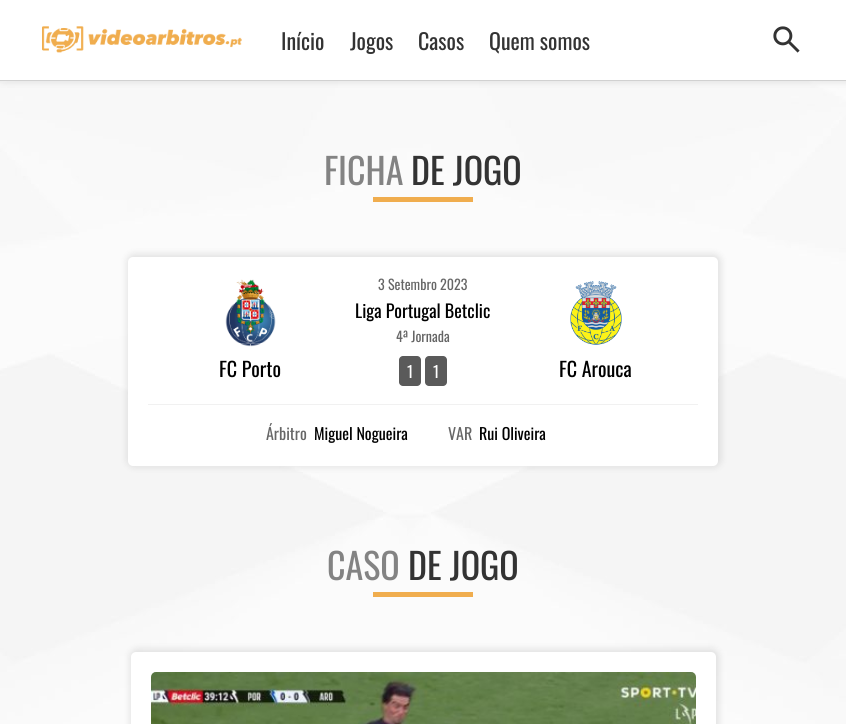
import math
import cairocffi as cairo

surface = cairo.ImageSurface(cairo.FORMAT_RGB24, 846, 724)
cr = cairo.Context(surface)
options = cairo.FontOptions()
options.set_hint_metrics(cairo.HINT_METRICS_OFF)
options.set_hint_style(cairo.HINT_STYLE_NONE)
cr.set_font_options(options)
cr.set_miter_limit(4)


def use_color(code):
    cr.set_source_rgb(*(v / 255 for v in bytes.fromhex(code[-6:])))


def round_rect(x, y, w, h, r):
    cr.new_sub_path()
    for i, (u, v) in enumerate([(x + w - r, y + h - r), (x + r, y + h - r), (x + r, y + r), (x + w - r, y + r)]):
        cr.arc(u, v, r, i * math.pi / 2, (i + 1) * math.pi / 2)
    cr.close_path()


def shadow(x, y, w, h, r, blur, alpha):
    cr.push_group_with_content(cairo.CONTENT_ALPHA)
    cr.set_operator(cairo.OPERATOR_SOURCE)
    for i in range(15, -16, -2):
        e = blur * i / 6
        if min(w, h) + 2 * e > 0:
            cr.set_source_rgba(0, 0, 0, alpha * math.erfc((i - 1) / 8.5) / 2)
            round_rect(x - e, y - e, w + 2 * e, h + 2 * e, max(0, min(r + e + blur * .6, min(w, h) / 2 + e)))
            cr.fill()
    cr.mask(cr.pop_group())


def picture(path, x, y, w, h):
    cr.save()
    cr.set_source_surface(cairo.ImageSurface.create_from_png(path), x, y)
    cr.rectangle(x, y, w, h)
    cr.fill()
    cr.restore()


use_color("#ffffff")
cr.paint()
picture("img1.png", 0, 81, 846, 643)
use_color("#000000")
shadow(-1, -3, 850, 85, 0, 3.5, 0.1)
use_color("#ffffff")
cr.rectangle(0, 0, 846, 80)
cr.fill()
use_color("#d1d1d1")
cr.rectangle(0, 80, 846, 1)
cr.fill()
picture("img2.png", 42, 26, 200, 27)
cr.select_font_face("Oswald")
cr.set_font_size(22)
use_color("#333333")
cr.move_to(281, 50)
cr.show_text("Início")
cr.move_to(350, 50)
cr.show_text("Jogos")
cr.move_to(418, 50)
cr.show_text("Casos")
cr.move_to(489, 50)
cr.show_text("Quem somos")
picture("img3.png", 773, 26, 27, 27)
cr.set_font_size(36)
use_color("#838383")
cr.move_to(324, 185)
cr.show_text("FICHA")
use_color("#333333")
cr.move_to(411, 185)
cr.show_text("DE JOGO")
use_color("#f0ad4e")
cr.rectangle(373, 197, 100, 5)
cr.fill()
use_color("#000000")
shadow(127, 254, 594, 213, 7, 3.5, 0.1)
use_color("#ffffff")
round_rect(128, 257, 590, 209, 5)
cr.fill()
picture("img4.png", 225, 279, 51, 68)
cr.set_font_size(20)
use_color("#000000")
cr.move_to(219, 377)
cr.show_text("FC Porto")
cr.set_font_size(14)
use_color("#666666")
cr.move_to(378, 290)
cr.show_text("3 Setembro 2023")
cr.set_font_size(18)
use_color("#000000")
cr.move_to(355, 318)
cr.show_text("Liga Portugal Betclic")
cr.set_font_size(14)
use_color("#666666")
cr.move_to(396, 342)
cr.show_text("4ª Jornada")
use_color("#5a5a5a")
round_rect(399, 356, 22, 30, 4)
cr.fill()
cr.set_font_size(16)
use_color("#ffffff")
cr.move_to(407, 378)
cr.show_text("1")
use_color("#5a5a5a")
round_rect(425, 356, 22, 30, 4)
cr.fill()
use_color("#ffffff")
cr.move_to(433, 378)
cr.show_text("1")
picture("img5.png", 570, 281, 52, 64)
cr.set_font_size(20)
use_color("#000000")
cr.move_to(559, 377)
cr.show_text("FC Arouca")
use_color("#f1f1f1")
cr.rectangle(148, 404, 550, 1)
cr.fill()
cr.set_font_size(16)
use_color("#666666")
cr.move_to(266, 440)
cr.show_text("Árbitro")
use_color("#000000")
cr.move_to(314, 440)
cr.show_text("Miguel Nogueira")
use_color("#666666")
cr.move_to(448, 440)
cr.show_text("VAR")
use_color("#000000")
cr.move_to(479, 440)
cr.show_text("Rui Oliveira")
cr.set_font_size(36)
use_color("#838383")
cr.move_to(327, 580)
cr.show_text("CASO")
use_color("#333333")
cr.move_to(408, 580)
cr.show_text("DE JOGO")
use_color("#f0ad4e")
cr.rectangle(373, 592, 100, 5)
cr.fill()
use_color("#000000")
shadow(130, 649, 589, 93, 7, 3.5, 0.1)
use_color("#ffffff")
round_rect(131, 652, 585, 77, 5)
cr.fill()
picture("img6.png", 151, 672, 545, 52)
surface.write_to_png("result.png")
